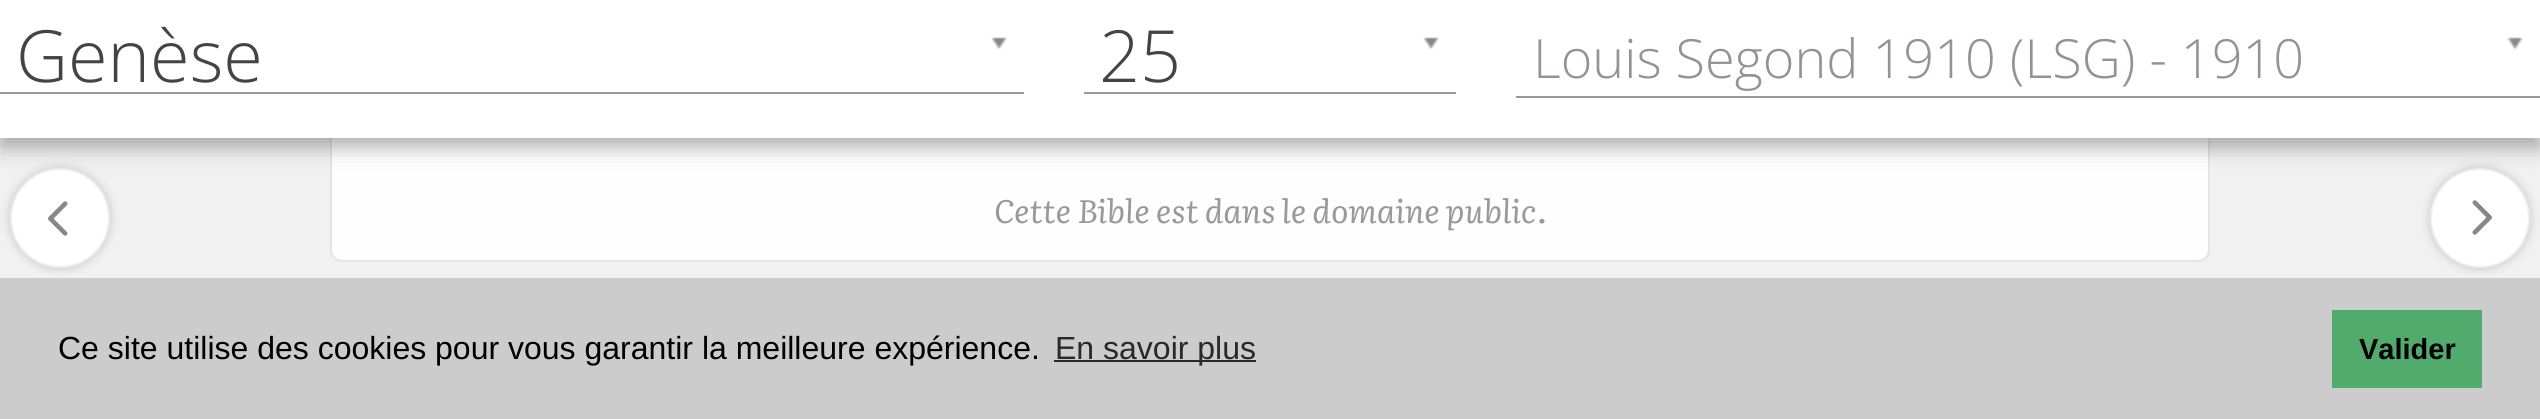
import math
import cairocffi as cairo

surface = cairo.ImageSurface(cairo.FORMAT_RGB24, 2540, 419)
cr = cairo.Context(surface)
options = cairo.FontOptions()
options.set_hint_metrics(cairo.HINT_METRICS_OFF)
options.set_hint_style(cairo.HINT_STYLE_NONE)
cr.set_font_options(options)
cr.set_miter_limit(4)


def use_color(code):
    cr.set_source_rgb(*(v / 255 for v in bytes.fromhex(code[-6:])))


def round_rect(x, y, w, h, r):
    cr.new_sub_path()
    for i, (u, v) in enumerate([(x + w - r, y + h - r), (x + r, y + h - r), (x + r, y + r), (x + w - r, y + r)]):
        cr.arc(u, v, r, i * math.pi / 2, (i + 1) * math.pi / 2)
    cr.close_path()


def shadow(x, y, w, h, r, blur, alpha):
    cr.push_group_with_content(cairo.CONTENT_ALPHA)
    cr.set_operator(cairo.OPERATOR_SOURCE)
    for i in range(15, -16, -2):
        e = blur * i / 6
        if min(w, h) + 2 * e > 0:
            cr.set_source_rgba(0, 0, 0, alpha * math.erfc((i - 1) / 8.5) / 2)
            round_rect(x - e, y - e, w + 2 * e, h + 2 * e, max(0, min(r + e + blur * .6, min(w, h) / 2 + e)))
            cr.fill()
    cr.mask(cr.pop_group())


def picture(path, x, y, w, h):
    cr.save()
    cr.set_source_surface(cairo.ImageSurface.create_from_png(path), x, y)
    cr.rectangle(x, y, w, h)
    cr.fill()
    cr.restore()


use_color("#f1f1f1")
cr.paint()
use_color("#fefefe")
round_rect(331, -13, 1878, 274, 11)
cr.fill_preserve()
use_color("#e4e4e4")
cr.stroke()
use_color("#000000")
shadow(0, 10, 2540, 138, 0, 10, 0.3)
use_color("#ffffff")
cr.rectangle(0, 0, 2540, 138)
cr.fill()
use_color("#999999")
cr.rectangle(0, 92, 1024, 2)
cr.fill()
cr.select_font_face("Open Sans Light")
cr.set_font_size(72)
use_color("#444444")
cr.move_to(16, 82)
cr.show_text("Genèse")
picture("img1.png", 991, 37, 16, 12)
use_color("#999999")
cr.rectangle(1084, 92, 372, 2)
cr.fill()
use_color("#444444")
cr.move_to(1099, 82)
cr.show_text("25")
picture("img1.png", 1423, 37, 16, 12)
use_color("#999999")
cr.rectangle(1516, 96, 1024, 2)
cr.fill()
cr.set_font_size(54)
use_color("#989191")
cr.move_to(1533, 78)
cr.show_text("Louis Segond 1910 (LSG) - 1910")
picture("img2.png", 2507, 37, 16, 14)
use_color("#969696")
shadow(10, 168, 100, 100, 50, 5, 0.5)
use_color("#ffffff")
cr.arc(60, 218, 49, 0, 2 * math.pi)
cr.fill_preserve()
use_color("#eeeeee")
cr.stroke()
picture("img3.png", 48, 201, 20, 35)
use_color("#969696")
shadow(2430, 168, 100, 100, 50, 5, 0.5)
use_color("#ffffff")
cr.arc(2480, 218, 49, 0, 2 * math.pi)
cr.fill_preserve()
use_color("#eeeeee")
cr.stroke()
picture("img4.png", 2472, 200, 20, 35)
cr.select_font_face("Literata", cairo.FONT_SLANT_ITALIC)
cr.set_font_size(32.4)
use_color("#999999")
cr.move_to(994, 223)
cr.show_text("Cette Bible est dans le domaine public.")
use_color("#cccccc")
cr.rectangle(0, 278, 2540, 141)
cr.fill()
cr.select_font_face("Liberation Sans")
cr.set_font_size(32)
use_color("#000000")
cr.move_to(58, 359)
cr.show_text("Ce site utilise des cookies pour vous garantir la meilleure expérience.")
use_color("#292929")
cr.rectangle(1054, 360, 202, 2)
cr.fill()
cr.move_to(1055, 359)
cr.show_text("En savoir plus")
use_color("#51ab6d")
cr.rectangle(2332, 310, 150, 78)
cr.fill()
cr.select_font_face("Liberation Sans", cairo.FONT_SLANT_NORMAL, cairo.FONT_WEIGHT_BOLD)
cr.set_font_size(29)
use_color("#000000")
cr.move_to(2359, 359)
cr.show_text("Valider")
surface.write_to_png("result.png")
